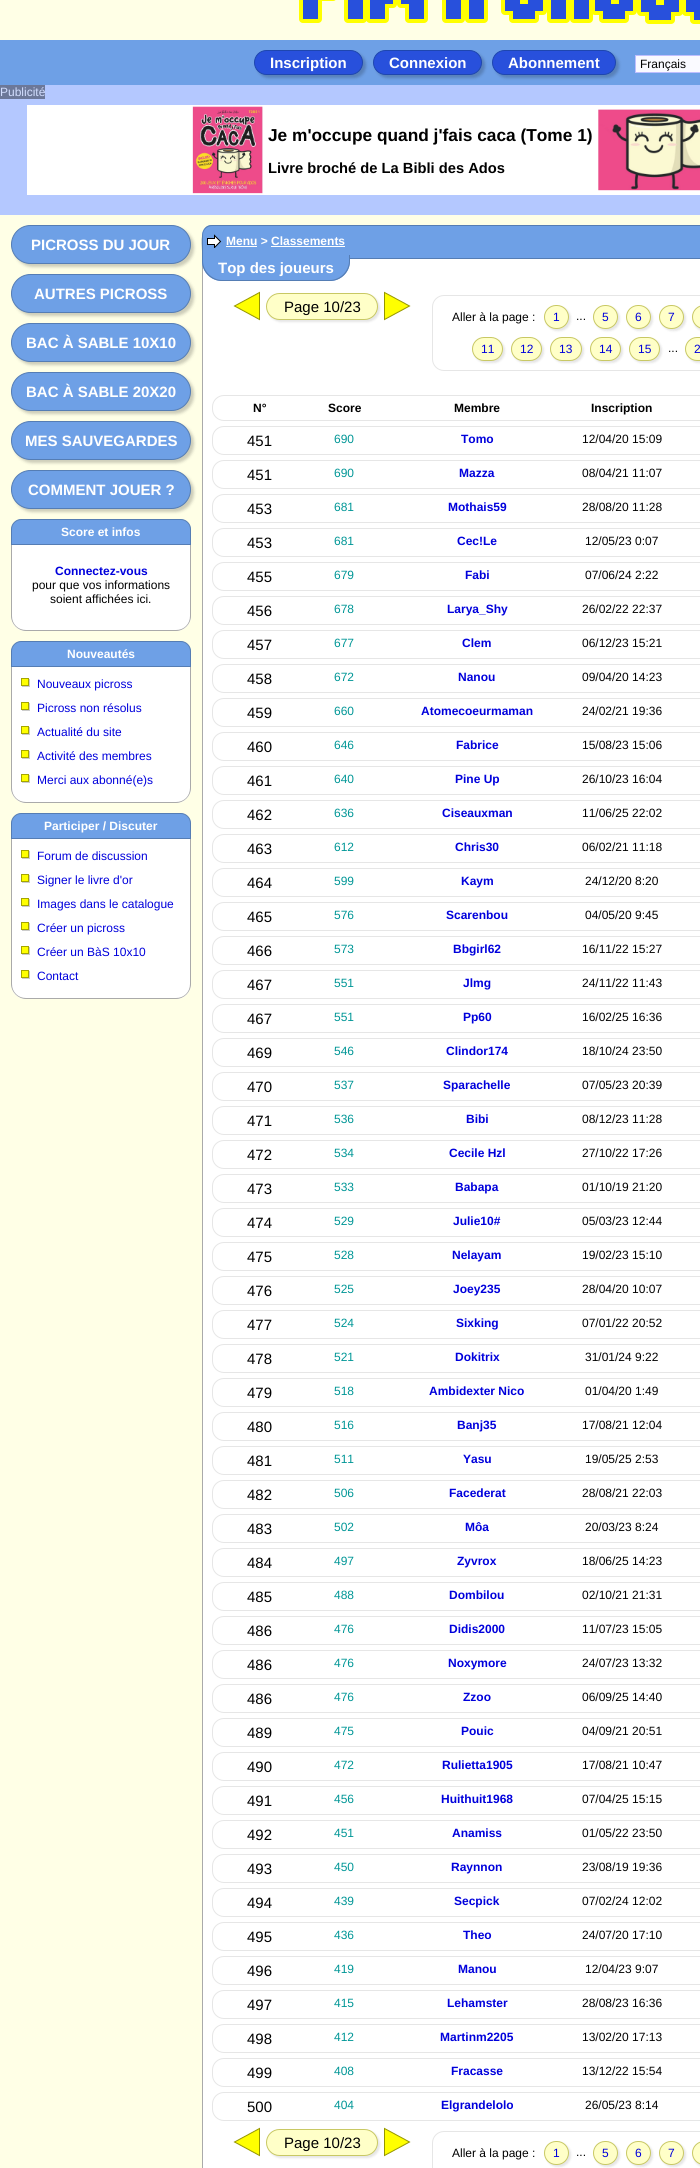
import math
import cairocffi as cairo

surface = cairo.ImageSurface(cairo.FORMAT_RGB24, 700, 2168)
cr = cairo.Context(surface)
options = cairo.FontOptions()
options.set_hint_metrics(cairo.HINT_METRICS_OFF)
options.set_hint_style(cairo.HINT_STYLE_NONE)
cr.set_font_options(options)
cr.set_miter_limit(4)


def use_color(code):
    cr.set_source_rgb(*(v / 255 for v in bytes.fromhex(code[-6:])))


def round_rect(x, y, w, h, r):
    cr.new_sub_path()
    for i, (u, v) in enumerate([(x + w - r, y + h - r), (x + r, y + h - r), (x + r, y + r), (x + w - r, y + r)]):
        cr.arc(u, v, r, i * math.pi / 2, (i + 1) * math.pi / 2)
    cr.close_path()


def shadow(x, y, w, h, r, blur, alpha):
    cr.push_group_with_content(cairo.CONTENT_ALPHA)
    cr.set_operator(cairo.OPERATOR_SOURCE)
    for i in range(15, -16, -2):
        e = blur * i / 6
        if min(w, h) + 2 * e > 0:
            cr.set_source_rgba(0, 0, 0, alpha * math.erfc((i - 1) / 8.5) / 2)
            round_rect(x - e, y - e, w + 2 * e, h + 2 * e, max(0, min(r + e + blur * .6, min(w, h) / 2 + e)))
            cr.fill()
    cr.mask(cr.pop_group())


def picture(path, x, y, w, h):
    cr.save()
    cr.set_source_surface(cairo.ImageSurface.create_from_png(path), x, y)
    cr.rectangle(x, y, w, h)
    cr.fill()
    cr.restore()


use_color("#b4c8ff")
cr.paint()
use_color("#ffffe6")
cr.rectangle(0, 0, 700, 40)
cr.fill()
picture("img1.png", 299, 0, 401, 24)
use_color("#6ea0e6")
cr.rectangle(0, 40, 700, 45)
cr.fill()
use_color("#000000")
shadow(257, 53, 109, 25, 12.5, 1.5, 0.2)
use_color("#2850dc")
round_rect(254.5, 50.5, 108, 24, 12)
cr.fill_preserve()
use_color("#1e46af")
cr.set_line_width(1)
cr.stroke()
cr.select_font_face("Liberation Sans", cairo.FONT_SLANT_NORMAL, cairo.FONT_WEIGHT_BOLD)
cr.set_font_size(15)
use_color("#ffffff")
cr.move_to(270, 68)
cr.show_text("Inscription")
use_color("#000000")
shadow(376, 53, 109, 25, 12.5, 1.5, 0.2)
use_color("#2850dc")
round_rect(373.5, 50.5, 108, 24, 12)
cr.fill_preserve()
use_color("#1e46af")
cr.stroke()
use_color("#ffffff")
cr.move_to(389, 68)
cr.show_text("Connexion")
use_color("#000000")
shadow(495, 53, 124, 25, 12.5, 1.5, 0.2)
use_color("#2850dc")
round_rect(492.5, 50.5, 123, 24, 12)
cr.fill_preserve()
use_color("#1e46af")
cr.stroke()
use_color("#ffffff")
cr.move_to(508, 68)
cr.show_text("Abonnement")
use_color("#fafaff")
cr.rectangle(635.5, 55.5, 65, 17)
cr.fill_preserve()
use_color("#bebeff")
cr.stroke()
cr.select_font_face("Liberation Sans")
cr.set_font_size(12)
use_color("#000000")
cr.move_to(640, 68)
cr.show_text("Français")
use_color("#ffffe6")
cr.rectangle(0, 215, 700, 1953)
cr.fill()
use_color("#6c7899")
cr.rectangle(0, 85, 45, 14)
cr.fill()
use_color("#d2deff")
cr.move_to(0, 96)
cr.show_text("Publicité")
use_color("#ffffff")
cr.rectangle(27, 105, 673, 90)
cr.fill()
picture("img2.png", 192, 106, 71, 88)
cr.select_font_face("Liberation Sans", cairo.FONT_SLANT_NORMAL, cairo.FONT_WEIGHT_BOLD)
cr.set_font_size(17.3)
use_color("#000000")
cr.move_to(268, 141)
cr.show_text("Je m'occupe quand j'fais caca (Tome 1)")
cr.set_font_size(14.7)
cr.move_to(268, 173)
cr.show_text("Livre broché de La Bibli des Ados")
picture("img3.png", 598, 109, 102, 82)
use_color("#000000")
shadow(14, 228, 180, 39, 19.5, 1.5, 0.2)
use_color("#6ea0e6")
round_rect(11.5, 225.5, 179, 38, 19)
cr.fill_preserve()
use_color("#557db4")
cr.stroke()
cr.set_font_size(15)
use_color("#ffffff")
cr.move_to(31, 250)
cr.show_text("PICROSS DU JOUR")
use_color("#000000")
shadow(14, 277, 180, 39, 19.5, 1.5, 0.2)
use_color("#6ea0e6")
round_rect(11.5, 274.5, 179, 38, 19)
cr.fill_preserve()
use_color("#557db4")
cr.stroke()
use_color("#ffffff")
cr.move_to(34, 299)
cr.show_text("AUTRES PICROSS")
use_color("#000000")
shadow(14, 326, 180, 39, 19.5, 1.5, 0.2)
use_color("#6ea0e6")
round_rect(11.5, 323.5, 179, 38, 19)
cr.fill_preserve()
use_color("#557db4")
cr.stroke()
use_color("#ffffff")
cr.move_to(26, 348)
cr.show_text("BAC À SABLE 10X10")
use_color("#000000")
shadow(14, 375, 180, 39, 19.5, 1.5, 0.2)
use_color("#6ea0e6")
round_rect(11.5, 372.5, 179, 38, 19)
cr.fill_preserve()
use_color("#557db4")
cr.stroke()
use_color("#ffffff")
cr.move_to(26, 397)
cr.show_text("BAC À SABLE 20X20")
use_color("#000000")
shadow(14, 424, 180, 39, 19.5, 1.5, 0.2)
use_color("#6ea0e6")
round_rect(11.5, 421.5, 179, 38, 19)
cr.fill_preserve()
use_color("#557db4")
cr.stroke()
use_color("#ffffff")
cr.move_to(25, 446)
cr.show_text("MES SAUVEGARDES")
use_color("#000000")
shadow(14, 473, 180, 39, 19.5, 1.5, 0.2)
use_color("#6ea0e6")
round_rect(11.5, 470.5, 179, 38, 19)
cr.fill_preserve()
use_color("#557db4")
cr.stroke()
use_color("#ffffff")
cr.move_to(28, 495)
cr.show_text("COMMENT JOUER ?")
use_color("#6ea0e6")
cr.new_path()
cr.move_to(21, 519.5)
cr.line_to(181, 519.5)
cr.curve_to(186, 519.5, 190.5, 524, 190.5, 529)
cr.line_to(190.5, 544.5)
cr.line_to(11.5, 544.5)
cr.line_to(11.5, 529)
cr.curve_to(11.5, 524, 16, 519.5, 21, 519.5)
cr.close_path()
cr.fill_preserve()
use_color("#557db4")
cr.stroke()
cr.set_font_size(12)
use_color("#ffffff")
cr.move_to(61, 536)
cr.show_text("Score et infos")
cr.new_path()
cr.move_to(11, 545)
cr.line_to(191, 545)
cr.line_to(191, 616)
cr.curve_to(191, 624.5, 184.5, 631, 176, 631)
cr.line_to(26, 631)
cr.curve_to(17.5, 631, 11, 624.5, 11, 616)
cr.close_path()
cr.fill()
use_color("#aaaaaa")
cr.set_fill_rule(cairo.FILL_RULE_EVEN_ODD)
cr.new_path()
cr.move_to(11, 545)
cr.line_to(191, 545)
cr.line_to(191, 616)
cr.curve_to(191, 624, 184, 631, 176, 631)
cr.line_to(26, 631)
cr.curve_to(18, 631, 11, 624, 11, 616)
cr.close_path()
cr.move_to(12, 545)
cr.line_to(190, 545)
cr.line_to(190, 616)
cr.curve_to(190, 624, 184, 630, 176, 630)
cr.line_to(26, 630)
cr.curve_to(18, 630, 12, 624, 12, 616)
cr.close_path()
cr.fill()
use_color("#0000dc")
cr.move_to(55, 575)
cr.show_text("Connectez-vous")
cr.select_font_face("Liberation Sans")
use_color("#000000")
cr.move_to(32, 589)
cr.show_text("pour que vos informations")
cr.move_to(50, 603)
cr.show_text("soient affichées ici.")
use_color("#6ea0e6")
cr.new_path()
cr.move_to(21, 641.5)
cr.line_to(181, 641.5)
cr.curve_to(186, 641.5, 190.5, 646, 190.5, 651)
cr.line_to(190.5, 666.5)
cr.line_to(11.5, 666.5)
cr.line_to(11.5, 651)
cr.curve_to(11.5, 646, 16, 641.5, 21, 641.5)
cr.close_path()
cr.fill_preserve()
use_color("#557db4")
cr.stroke()
cr.select_font_face("Liberation Sans", cairo.FONT_SLANT_NORMAL, cairo.FONT_WEIGHT_BOLD)
use_color("#ffffff")
cr.move_to(67, 658)
cr.show_text("Nouveautés")
cr.new_path()
cr.move_to(11, 667)
cr.line_to(191, 667)
cr.line_to(191, 788)
cr.curve_to(191, 796.5, 184.5, 803, 176, 803)
cr.line_to(26, 803)
cr.curve_to(17.5, 803, 11, 796.5, 11, 788)
cr.close_path()
cr.fill()
use_color("#aaaaaa")
cr.new_path()
cr.move_to(11, 667)
cr.line_to(191, 667)
cr.line_to(191, 788)
cr.curve_to(191, 796, 184, 803, 176, 803)
cr.line_to(26, 803)
cr.curve_to(18, 803, 11, 796, 11, 788)
cr.close_path()
cr.move_to(12, 667)
cr.line_to(190, 667)
cr.line_to(190, 788)
cr.curve_to(190, 796, 184, 802, 176, 802)
cr.line_to(26, 802)
cr.curve_to(18, 802, 12, 796, 12, 788)
cr.close_path()
cr.fill()
use_color("#cccccc")
cr.rectangle(22, 679, 8, 8)
cr.fill()
use_color("#ffff00")
cr.rectangle(21.5, 678.5, 7, 7)
cr.fill_preserve()
use_color("#a5a500")
cr.stroke()
cr.select_font_face("Liberation Sans")
use_color("#0000dc")
cr.move_to(37, 688)
cr.show_text("Nouveaux picross")
use_color("#cccccc")
cr.rectangle(22, 703, 8, 8)
cr.fill()
use_color("#ffff00")
cr.rectangle(21.5, 702.5, 7, 7)
cr.fill_preserve()
use_color("#a5a500")
cr.stroke()
use_color("#0000dc")
cr.move_to(37, 712)
cr.show_text("Picross non résolus")
use_color("#cccccc")
cr.rectangle(22, 727, 8, 8)
cr.fill()
use_color("#ffff00")
cr.rectangle(21.5, 726.5, 7, 7)
cr.fill_preserve()
use_color("#a5a500")
cr.stroke()
use_color("#0000dc")
cr.move_to(37, 736)
cr.show_text("Actualité du site")
use_color("#cccccc")
cr.rectangle(22, 751, 8, 8)
cr.fill()
use_color("#ffff00")
cr.rectangle(21.5, 750.5, 7, 7)
cr.fill_preserve()
use_color("#a5a500")
cr.stroke()
use_color("#0000dc")
cr.move_to(37, 760)
cr.show_text("Activité des membres")
use_color("#cccccc")
cr.rectangle(22, 775, 8, 8)
cr.fill()
use_color("#ffff00")
cr.rectangle(21.5, 774.5, 7, 7)
cr.fill_preserve()
use_color("#a5a500")
cr.stroke()
use_color("#0000dc")
cr.move_to(37, 784)
cr.show_text("Merci aux abonné(e)s")
use_color("#6ea0e6")
cr.new_path()
cr.move_to(21, 813.5)
cr.line_to(181, 813.5)
cr.curve_to(186, 813.5, 190.5, 818, 190.5, 823)
cr.line_to(190.5, 838.5)
cr.line_to(11.5, 838.5)
cr.line_to(11.5, 823)
cr.curve_to(11.5, 818, 16, 813.5, 21, 813.5)
cr.close_path()
cr.fill_preserve()
use_color("#557db4")
cr.stroke()
cr.select_font_face("Liberation Sans", cairo.FONT_SLANT_NORMAL, cairo.FONT_WEIGHT_BOLD)
use_color("#ffffff")
cr.move_to(44, 830)
cr.show_text("Participer / Discuter")
cr.new_path()
cr.move_to(11, 839)
cr.line_to(191, 839)
cr.line_to(191, 984)
cr.curve_to(191, 992.5, 184.5, 999, 176, 999)
cr.line_to(26, 999)
cr.curve_to(17.5, 999, 11, 992.5, 11, 984)
cr.close_path()
cr.fill()
use_color("#aaaaaa")
cr.new_path()
cr.move_to(11, 839)
cr.line_to(191, 839)
cr.line_to(191, 984)
cr.curve_to(191, 992, 184, 999, 176, 999)
cr.line_to(26, 999)
cr.curve_to(18, 999, 11, 992, 11, 984)
cr.close_path()
cr.move_to(12, 839)
cr.line_to(190, 839)
cr.line_to(190, 984)
cr.curve_to(190, 992, 184, 998, 176, 998)
cr.line_to(26, 998)
cr.curve_to(18, 998, 12, 992, 12, 984)
cr.close_path()
cr.fill()
use_color("#cccccc")
cr.rectangle(22, 851, 8, 8)
cr.fill()
use_color("#ffff00")
cr.rectangle(21.5, 850.5, 7, 7)
cr.fill_preserve()
use_color("#a5a500")
cr.stroke()
cr.select_font_face("Liberation Sans")
use_color("#0000dc")
cr.move_to(37, 860)
cr.show_text("Forum de discussion")
use_color("#cccccc")
cr.rectangle(22, 875, 8, 8)
cr.fill()
use_color("#ffff00")
cr.rectangle(21.5, 874.5, 7, 7)
cr.fill_preserve()
use_color("#a5a500")
cr.stroke()
use_color("#0000dc")
cr.move_to(37, 884)
cr.show_text("Signer le livre d'or")
use_color("#cccccc")
cr.rectangle(22, 899, 8, 8)
cr.fill()
use_color("#ffff00")
cr.rectangle(21.5, 898.5, 7, 7)
cr.fill_preserve()
use_color("#a5a500")
cr.stroke()
use_color("#0000dc")
cr.move_to(37, 908)
cr.show_text("Images dans le catalogue")
use_color("#cccccc")
cr.rectangle(22, 923, 8, 8)
cr.fill()
use_color("#ffff00")
cr.rectangle(21.5, 922.5, 7, 7)
cr.fill_preserve()
use_color("#a5a500")
cr.stroke()
use_color("#0000dc")
cr.move_to(37, 932)
cr.show_text("Créer un picross")
use_color("#cccccc")
cr.rectangle(22, 947, 8, 8)
cr.fill()
use_color("#ffff00")
cr.rectangle(21.5, 946.5, 7, 7)
cr.fill_preserve()
use_color("#a5a500")
cr.stroke()
use_color("#0000dc")
cr.move_to(37, 956)
cr.show_text("Créer un BàS 10x10")
use_color("#cccccc")
cr.rectangle(22, 971, 8, 8)
cr.fill()
use_color("#ffff00")
cr.rectangle(21.5, 970.5, 7, 7)
cr.fill_preserve()
use_color("#a5a500")
cr.stroke()
use_color("#0000dc")
cr.move_to(37, 980)
cr.show_text("Contact")
use_color("#6ea0e6")
cr.new_path()
cr.move_to(212, 225)
cr.line_to(700, 225)
cr.curve_to(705.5, 225, 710, 229.5, 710, 235)
cr.line_to(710, 251)
cr.line_to(202, 251)
cr.line_to(202, 235)
cr.curve_to(202, 229.5, 206.5, 225, 212, 225)
cr.close_path()
cr.fill()
use_color("#557db4")
cr.new_path()
cr.move_to(212, 225)
cr.line_to(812, 225)
cr.curve_to(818, 225, 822, 229, 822, 235)
cr.line_to(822, 251)
cr.line_to(202, 251)
cr.curve_to(202, 243, 199, 225, 212, 225)
cr.close_path()
cr.move_to(212, 226)
cr.line_to(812, 226)
cr.curve_to(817, 226, 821, 230, 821, 235)
cr.line_to(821, 251)
cr.line_to(203, 251)
cr.line_to(203, 235)
cr.curve_to(203, 230, 207, 226, 212, 226)
cr.close_path()
cr.fill()
picture("img4.png", 207, 234, 15, 14)
cr.select_font_face("Liberation Sans", cairo.FONT_SLANT_NORMAL, cairo.FONT_WEIGHT_BOLD)
use_color("#ffffff")
cr.move_to(226, 245)
cr.show_text("Menu > Classements")
cr.rectangle(226, 246, 31, 1)
cr.fill()
cr.rectangle(271, 246, 74, 1)
cr.fill()
cr.rectangle(203, 259, 497, 22)
cr.fill()
use_color("#aaaaaa")
cr.rectangle(202, 261, 1, 20)
cr.fill()
use_color("#6ea0e6")
cr.rectangle(202, 251, 498, 7)
cr.fill()
use_color("#557db4")
cr.new_path()
cr.move_to(202, 251)
cr.line_to(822, 251)
cr.curve_to(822, 255, 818, 259, 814, 259)
cr.line_to(202, 259)
cr.close_path()
cr.move_to(203, 251)
cr.line_to(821, 251)
cr.curve_to(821, 255, 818, 258, 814, 258)
cr.line_to(203, 258)
cr.close_path()
cr.fill()
use_color("#6ea0e6")
cr.new_path()
cr.move_to(202, 255)
cr.line_to(350, 255)
cr.line_to(350, 261)
cr.curve_to(350, 272, 341, 281, 330, 281)
cr.line_to(222, 281)
cr.curve_to(211, 281, 202, 272, 202, 261)
cr.close_path()
cr.fill()
use_color("#557db4")
cr.new_path()
cr.move_to(202, 255)
cr.line_to(350, 255)
cr.line_to(350, 261)
cr.curve_to(350, 272, 341, 281, 330, 281)
cr.line_to(222, 281)
cr.curve_to(211, 281, 202, 272, 202, 261)
cr.close_path()
cr.move_to(203, 255)
cr.line_to(349, 255)
cr.line_to(349, 261)
cr.curve_to(349, 271, 340, 280, 330, 280)
cr.line_to(222, 280)
cr.curve_to(212, 280, 203, 271, 203, 261)
cr.close_path()
cr.fill()
cr.set_font_size(15)
use_color("#ffffff")
cr.move_to(218, 273)
cr.show_text("Top des joueurs")
cr.rectangle(203, 281, 497, 1887)
cr.fill()
use_color("#aaaaaa")
cr.new_path()
cr.move_to(202, 281)
cr.line_to(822, 281)
cr.line_to(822, 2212)
cr.curve_to(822, 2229, 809, 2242, 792, 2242)
cr.line_to(232, 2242)
cr.curve_to(215, 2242, 202, 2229, 202, 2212)
cr.close_path()
cr.move_to(203, 281)
cr.line_to(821, 281)
cr.line_to(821, 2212)
cr.curve_to(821, 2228, 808, 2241, 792, 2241)
cr.line_to(232, 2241)
cr.curve_to(216, 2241, 203, 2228, 203, 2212)
cr.close_path()
cr.fill()
use_color("#ffff00")
cr.set_fill_rule(cairo.FILL_RULE_WINDING)
cr.new_path()
cr.move_to(234.5, 306)
cr.line_to(259.5, 292.5)
cr.line_to(259.5, 319.5)
cr.close_path()
cr.fill_preserve()
use_color("#969600")
cr.stroke()
use_color("#000000")
shadow(268, 295, 112, 27, 13.5, 1, 0.1)
use_color("#ffffc8")
round_rect(266.5, 293.5, 111, 26, 13)
cr.fill_preserve()
use_color("#c8c864")
cr.stroke()
cr.select_font_face("Liberation Sans")
use_color("#000000")
cr.move_to(284, 312)
cr.show_text("Page 10/23")
use_color("#ffff00")
cr.new_path()
cr.move_to(409.5, 306)
cr.line_to(384.5, 292.5)
cr.line_to(384.5, 319.5)
cr.close_path()
cr.fill_preserve()
use_color("#969600")
cr.stroke()
round_rect(432.5, 295.5, 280, 75, 11.5)
use_color("#e6e6e6")
cr.stroke()
cr.set_font_size(12)
use_color("#000000")
cr.move_to(452, 321)
cr.show_text("Aller à la page :")
use_color("#000000")
shadow(546, 307, 25, 24, 12, 1, 0.1)
use_color("#ffffc8")
round_rect(544.5, 305.5, 24, 23, 11.5)
cr.fill_preserve()
use_color("#c8c864")
cr.stroke()
use_color("#0000dc")
cr.move_to(553, 321)
cr.show_text("1")
use_color("#000000")
cr.move_to(576, 320)
cr.show_text("...")
use_color("#000000")
shadow(595, 307, 25, 24, 12, 1, 0.1)
use_color("#ffffc8")
round_rect(593.5, 305.5, 24, 23, 11.5)
cr.fill_preserve()
use_color("#c8c864")
cr.stroke()
use_color("#0000dc")
cr.move_to(602, 321)
cr.show_text("5")
use_color("#000000")
shadow(628, 307, 25, 24, 12, 1, 0.1)
use_color("#ffffc8")
round_rect(626.5, 305.5, 24, 23, 11.5)
cr.fill_preserve()
use_color("#c8c864")
cr.stroke()
use_color("#0000dc")
cr.move_to(635, 321)
cr.show_text("6")
use_color("#000000")
shadow(661, 307, 25, 24, 12, 1, 0.1)
use_color("#ffffc8")
round_rect(659.5, 305.5, 24, 23, 11.5)
cr.fill_preserve()
use_color("#c8c864")
cr.stroke()
use_color("#0000dc")
cr.move_to(668, 321)
cr.show_text("7")
use_color("#000000")
shadow(694, 307, 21, 24, 12, 1, 0.1)
use_color("#ffffc8")
round_rect(692.5, 305.5, 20, 23, 11.5)
cr.fill_preserve()
use_color("#c8c864")
cr.stroke()
use_color("#000000")
shadow(474, 339, 31, 24, 12, 1, 0.1)
use_color("#ffffc8")
round_rect(472.5, 337.5, 30, 23, 11.5)
cr.fill_preserve()
use_color("#c8c864")
cr.stroke()
use_color("#0000dc")
cr.move_to(481, 353)
cr.show_text("11")
use_color("#000000")
shadow(513, 339, 31, 24, 12, 1, 0.1)
use_color("#ffffc8")
round_rect(511.5, 337.5, 30, 23, 11.5)
cr.fill_preserve()
use_color("#c8c864")
cr.stroke()
use_color("#0000dc")
cr.move_to(520, 353)
cr.show_text("12")
use_color("#000000")
shadow(552, 339, 32, 24, 12, 1, 0.1)
use_color("#ffffc8")
round_rect(550.5, 337.5, 31, 23, 11.5)
cr.fill_preserve()
use_color("#c8c864")
cr.stroke()
use_color("#0000dc")
cr.move_to(559, 353)
cr.show_text("13")
use_color("#000000")
shadow(592, 339, 31, 24, 12, 1, 0.1)
use_color("#ffffc8")
round_rect(590.5, 337.5, 30, 23, 11.5)
cr.fill_preserve()
use_color("#c8c864")
cr.stroke()
use_color("#0000dc")
cr.move_to(599, 353)
cr.show_text("14")
use_color("#000000")
shadow(631, 339, 31, 24, 12, 1, 0.1)
use_color("#ffffc8")
round_rect(629.5, 337.5, 30, 23, 11.5)
cr.fill_preserve()
use_color("#c8c864")
cr.stroke()
use_color("#0000dc")
cr.move_to(638, 353)
cr.show_text("15")
use_color("#000000")
cr.move_to(668, 352)
cr.show_text("...")
use_color("#000000")
shadow(687, 339, 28, 24, 12, 1, 0.1)
use_color("#ffffc8")
round_rect(685.5, 337.5, 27, 23, 11.5)
cr.fill_preserve()
use_color("#c8c864")
cr.stroke()
use_color("#0000dc")
cr.move_to(694, 353)
cr.show_text("2")
round_rect(212.5, 395.5, 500, 25, 11.5)
use_color("#e6e6e6")
cr.stroke()
cr.select_font_face("Liberation Sans", cairo.FONT_SLANT_NORMAL, cairo.FONT_WEIGHT_BOLD)
use_color("#000000")
cr.move_to(253, 412)
cr.show_text("N°")
cr.move_to(328, 412)
cr.show_text("Score")
cr.move_to(454, 412)
cr.show_text("Membre")
cr.move_to(591, 412)
cr.show_text("Inscription")
round_rect(212.5, 426.5, 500, 28, 11.5)
use_color("#e6e6e6")
cr.stroke()
cr.select_font_face("Liberation Sans")
cr.set_font_size(15)
use_color("#000000")
cr.move_to(247, 446)
cr.show_text("451")
cr.set_font_size(12)
use_color("#009696")
cr.move_to(334, 443)
cr.show_text("690")
cr.select_font_face("Liberation Sans", cairo.FONT_SLANT_NORMAL, cairo.FONT_WEIGHT_BOLD)
use_color("#0000dc")
cr.move_to(461, 443)
cr.show_text("Tomo")
cr.select_font_face("Liberation Sans")
use_color("#000000")
cr.move_to(582, 443)
cr.show_text("12/04/20 15:09")
round_rect(212.5, 460.5, 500, 28, 11.5)
use_color("#e6e6e6")
cr.stroke()
cr.set_font_size(15)
use_color("#000000")
cr.move_to(247, 480)
cr.show_text("451")
cr.set_font_size(12)
use_color("#009696")
cr.move_to(334, 477)
cr.show_text("690")
cr.select_font_face("Liberation Sans", cairo.FONT_SLANT_NORMAL, cairo.FONT_WEIGHT_BOLD)
use_color("#0000dc")
cr.move_to(459, 477)
cr.show_text("Mazza")
cr.select_font_face("Liberation Sans")
use_color("#000000")
cr.move_to(582, 477)
cr.show_text("08/04/21 11:07")
round_rect(212.5, 494.5, 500, 28, 11.5)
use_color("#e6e6e6")
cr.stroke()
cr.set_font_size(15)
use_color("#000000")
cr.move_to(247, 514)
cr.show_text("453")
cr.set_font_size(12)
use_color("#009696")
cr.move_to(334, 511)
cr.show_text("681")
cr.select_font_face("Liberation Sans", cairo.FONT_SLANT_NORMAL, cairo.FONT_WEIGHT_BOLD)
use_color("#0000dc")
cr.move_to(448, 511)
cr.show_text("Mothais59")
cr.select_font_face("Liberation Sans")
use_color("#000000")
cr.move_to(582, 511)
cr.show_text("28/08/20 11:28")
round_rect(212.5, 528.5, 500, 28, 11.5)
use_color("#e6e6e6")
cr.stroke()
cr.set_font_size(15)
use_color("#000000")
cr.move_to(247, 548)
cr.show_text("453")
cr.set_font_size(12)
use_color("#009696")
cr.move_to(334, 545)
cr.show_text("681")
cr.select_font_face("Liberation Sans", cairo.FONT_SLANT_NORMAL, cairo.FONT_WEIGHT_BOLD)
use_color("#0000dc")
cr.move_to(457, 545)
cr.show_text("Cec!Le")
cr.select_font_face("Liberation Sans")
use_color("#000000")
cr.move_to(585, 545)
cr.show_text("12/05/23 0:07")
round_rect(212.5, 562.5, 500, 28, 11.5)
use_color("#e6e6e6")
cr.stroke()
cr.set_font_size(15)
use_color("#000000")
cr.move_to(247, 582)
cr.show_text("455")
cr.set_font_size(12)
use_color("#009696")
cr.move_to(334, 579)
cr.show_text("679")
cr.select_font_face("Liberation Sans", cairo.FONT_SLANT_NORMAL, cairo.FONT_WEIGHT_BOLD)
use_color("#0000dc")
cr.move_to(465, 579)
cr.show_text("Fabi")
cr.select_font_face("Liberation Sans")
use_color("#000000")
cr.move_to(585, 579)
cr.show_text("07/06/24 2:22")
round_rect(212.5, 596.5, 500, 28, 11.5)
use_color("#e6e6e6")
cr.stroke()
cr.set_font_size(15)
use_color("#000000")
cr.move_to(247, 616)
cr.show_text("456")
cr.set_font_size(12)
use_color("#009696")
cr.move_to(334, 613)
cr.show_text("678")
cr.select_font_face("Liberation Sans", cairo.FONT_SLANT_NORMAL, cairo.FONT_WEIGHT_BOLD)
use_color("#0000dc")
cr.move_to(447, 613)
cr.show_text("Larya_Shy")
cr.select_font_face("Liberation Sans")
use_color("#000000")
cr.move_to(582, 613)
cr.show_text("26/02/22 22:37")
round_rect(212.5, 630.5, 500, 28, 11.5)
use_color("#e6e6e6")
cr.stroke()
cr.set_font_size(15)
use_color("#000000")
cr.move_to(247, 650)
cr.show_text("457")
cr.set_font_size(12)
use_color("#009696")
cr.move_to(334, 647)
cr.show_text("677")
cr.select_font_face("Liberation Sans", cairo.FONT_SLANT_NORMAL, cairo.FONT_WEIGHT_BOLD)
use_color("#0000dc")
cr.move_to(462, 647)
cr.show_text("Clem")
cr.select_font_face("Liberation Sans")
use_color("#000000")
cr.move_to(582, 647)
cr.show_text("06/12/23 15:21")
round_rect(212.5, 664.5, 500, 28, 11.5)
use_color("#e6e6e6")
cr.stroke()
cr.set_font_size(15)
use_color("#000000")
cr.move_to(247, 684)
cr.show_text("458")
cr.set_font_size(12)
use_color("#009696")
cr.move_to(334, 681)
cr.show_text("672")
cr.select_font_face("Liberation Sans", cairo.FONT_SLANT_NORMAL, cairo.FONT_WEIGHT_BOLD)
use_color("#0000dc")
cr.move_to(458, 681)
cr.show_text("Nanou")
cr.select_font_face("Liberation Sans")
use_color("#000000")
cr.move_to(582, 681)
cr.show_text("09/04/20 14:23")
round_rect(212.5, 698.5, 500, 28, 11.5)
use_color("#e6e6e6")
cr.stroke()
cr.set_font_size(15)
use_color("#000000")
cr.move_to(247, 718)
cr.show_text("459")
cr.set_font_size(12)
use_color("#009696")
cr.move_to(334, 715)
cr.show_text("660")
cr.select_font_face("Liberation Sans", cairo.FONT_SLANT_NORMAL, cairo.FONT_WEIGHT_BOLD)
use_color("#0000dc")
cr.move_to(421, 715)
cr.show_text("Atomecoeurmaman")
cr.select_font_face("Liberation Sans")
use_color("#000000")
cr.move_to(582, 715)
cr.show_text("24/02/21 19:36")
round_rect(212.5, 732.5, 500, 28, 11.5)
use_color("#e6e6e6")
cr.stroke()
cr.set_font_size(15)
use_color("#000000")
cr.move_to(247, 752)
cr.show_text("460")
cr.set_font_size(12)
use_color("#009696")
cr.move_to(334, 749)
cr.show_text("646")
cr.select_font_face("Liberation Sans", cairo.FONT_SLANT_NORMAL, cairo.FONT_WEIGHT_BOLD)
use_color("#0000dc")
cr.move_to(456, 749)
cr.show_text("Fabrice")
cr.select_font_face("Liberation Sans")
use_color("#000000")
cr.move_to(582, 749)
cr.show_text("15/08/23 15:06")
round_rect(212.5, 766.5, 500, 28, 11.5)
use_color("#e6e6e6")
cr.stroke()
cr.set_font_size(15)
use_color("#000000")
cr.move_to(247, 786)
cr.show_text("461")
cr.set_font_size(12)
use_color("#009696")
cr.move_to(334, 783)
cr.show_text("640")
cr.select_font_face("Liberation Sans", cairo.FONT_SLANT_NORMAL, cairo.FONT_WEIGHT_BOLD)
use_color("#0000dc")
cr.move_to(455, 783)
cr.show_text("Pine Up")
cr.select_font_face("Liberation Sans")
use_color("#000000")
cr.move_to(582, 783)
cr.show_text("26/10/23 16:04")
round_rect(212.5, 800.5, 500, 28, 11.5)
use_color("#e6e6e6")
cr.stroke()
cr.set_font_size(15)
use_color("#000000")
cr.move_to(247, 820)
cr.show_text("462")
cr.set_font_size(12)
use_color("#009696")
cr.move_to(334, 817)
cr.show_text("636")
cr.select_font_face("Liberation Sans", cairo.FONT_SLANT_NORMAL, cairo.FONT_WEIGHT_BOLD)
use_color("#0000dc")
cr.move_to(442, 817)
cr.show_text("Ciseauxman")
cr.select_font_face("Liberation Sans")
use_color("#000000")
cr.move_to(582, 817)
cr.show_text("11/06/25 22:02")
round_rect(212.5, 834.5, 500, 28, 11.5)
use_color("#e6e6e6")
cr.stroke()
cr.set_font_size(15)
use_color("#000000")
cr.move_to(247, 854)
cr.show_text("463")
cr.set_font_size(12)
use_color("#009696")
cr.move_to(334, 851)
cr.show_text("612")
cr.select_font_face("Liberation Sans", cairo.FONT_SLANT_NORMAL, cairo.FONT_WEIGHT_BOLD)
use_color("#0000dc")
cr.move_to(455, 851)
cr.show_text("Chris30")
cr.select_font_face("Liberation Sans")
use_color("#000000")
cr.move_to(582, 851)
cr.show_text("06/02/21 11:18")
round_rect(212.5, 868.5, 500, 28, 11.5)
use_color("#e6e6e6")
cr.stroke()
cr.set_font_size(15)
use_color("#000000")
cr.move_to(247, 888)
cr.show_text("464")
cr.set_font_size(12)
use_color("#009696")
cr.move_to(334, 885)
cr.show_text("599")
cr.select_font_face("Liberation Sans", cairo.FONT_SLANT_NORMAL, cairo.FONT_WEIGHT_BOLD)
use_color("#0000dc")
cr.move_to(461, 885)
cr.show_text("Kaym")
cr.select_font_face("Liberation Sans")
use_color("#000000")
cr.move_to(585, 885)
cr.show_text("24/12/20 8:20")
round_rect(212.5, 902.5, 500, 28, 11.5)
use_color("#e6e6e6")
cr.stroke()
cr.set_font_size(15)
use_color("#000000")
cr.move_to(247, 922)
cr.show_text("465")
cr.set_font_size(12)
use_color("#009696")
cr.move_to(334, 919)
cr.show_text("576")
cr.select_font_face("Liberation Sans", cairo.FONT_SLANT_NORMAL, cairo.FONT_WEIGHT_BOLD)
use_color("#0000dc")
cr.move_to(446, 919)
cr.show_text("Scarenbou")
cr.select_font_face("Liberation Sans")
use_color("#000000")
cr.move_to(585, 919)
cr.show_text("04/05/20 9:45")
round_rect(212.5, 936.5, 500, 28, 11.5)
use_color("#e6e6e6")
cr.stroke()
cr.set_font_size(15)
use_color("#000000")
cr.move_to(247, 956)
cr.show_text("466")
cr.set_font_size(12)
use_color("#009696")
cr.move_to(334, 953)
cr.show_text("573")
cr.select_font_face("Liberation Sans", cairo.FONT_SLANT_NORMAL, cairo.FONT_WEIGHT_BOLD)
use_color("#0000dc")
cr.move_to(453, 953)
cr.show_text("Bbgirl62")
cr.select_font_face("Liberation Sans")
use_color("#000000")
cr.move_to(582, 953)
cr.show_text("16/11/22 15:27")
round_rect(212.5, 970.5, 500, 28, 11.5)
use_color("#e6e6e6")
cr.stroke()
cr.set_font_size(15)
use_color("#000000")
cr.move_to(247, 990)
cr.show_text("467")
cr.set_font_size(12)
use_color("#009696")
cr.move_to(334, 987)
cr.show_text("551")
cr.select_font_face("Liberation Sans", cairo.FONT_SLANT_NORMAL, cairo.FONT_WEIGHT_BOLD)
use_color("#0000dc")
cr.move_to(463, 987)
cr.show_text("Jlmg")
cr.select_font_face("Liberation Sans")
use_color("#000000")
cr.move_to(582, 987)
cr.show_text("24/11/22 11:43")
round_rect(212.5, 1004.5, 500, 28, 11.5)
use_color("#e6e6e6")
cr.stroke()
cr.set_font_size(15)
use_color("#000000")
cr.move_to(247, 1024)
cr.show_text("467")
cr.set_font_size(12)
use_color("#009696")
cr.move_to(334, 1021)
cr.show_text("551")
cr.select_font_face("Liberation Sans", cairo.FONT_SLANT_NORMAL, cairo.FONT_WEIGHT_BOLD)
use_color("#0000dc")
cr.move_to(463, 1021)
cr.show_text("Pp60")
cr.select_font_face("Liberation Sans")
use_color("#000000")
cr.move_to(582, 1021)
cr.show_text("16/02/25 16:36")
round_rect(212.5, 1038.5, 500, 28, 11.5)
use_color("#e6e6e6")
cr.stroke()
cr.set_font_size(15)
use_color("#000000")
cr.move_to(247, 1058)
cr.show_text("469")
cr.set_font_size(12)
use_color("#009696")
cr.move_to(334, 1055)
cr.show_text("546")
cr.select_font_face("Liberation Sans", cairo.FONT_SLANT_NORMAL, cairo.FONT_WEIGHT_BOLD)
use_color("#0000dc")
cr.move_to(446, 1055)
cr.show_text("Clindor174")
cr.select_font_face("Liberation Sans")
use_color("#000000")
cr.move_to(582, 1055)
cr.show_text("18/10/24 23:50")
round_rect(212.5, 1072.5, 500, 28, 11.5)
use_color("#e6e6e6")
cr.stroke()
cr.set_font_size(15)
use_color("#000000")
cr.move_to(247, 1092)
cr.show_text("470")
cr.set_font_size(12)
use_color("#009696")
cr.move_to(334, 1089)
cr.show_text("537")
cr.select_font_face("Liberation Sans", cairo.FONT_SLANT_NORMAL, cairo.FONT_WEIGHT_BOLD)
use_color("#0000dc")
cr.move_to(443, 1089)
cr.show_text("Sparachelle")
cr.select_font_face("Liberation Sans")
use_color("#000000")
cr.move_to(582, 1089)
cr.show_text("07/05/23 20:39")
round_rect(212.5, 1106.5, 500, 28, 11.5)
use_color("#e6e6e6")
cr.stroke()
cr.set_font_size(15)
use_color("#000000")
cr.move_to(247, 1126)
cr.show_text("471")
cr.set_font_size(12)
use_color("#009696")
cr.move_to(334, 1123)
cr.show_text("536")
cr.select_font_face("Liberation Sans", cairo.FONT_SLANT_NORMAL, cairo.FONT_WEIGHT_BOLD)
use_color("#0000dc")
cr.move_to(466, 1123)
cr.show_text("Bibi")
cr.select_font_face("Liberation Sans")
use_color("#000000")
cr.move_to(582, 1123)
cr.show_text("08/12/23 11:28")
round_rect(212.5, 1140.5, 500, 28, 11.5)
use_color("#e6e6e6")
cr.stroke()
cr.set_font_size(15)
use_color("#000000")
cr.move_to(247, 1160)
cr.show_text("472")
cr.set_font_size(12)
use_color("#009696")
cr.move_to(334, 1157)
cr.show_text("534")
cr.select_font_face("Liberation Sans", cairo.FONT_SLANT_NORMAL, cairo.FONT_WEIGHT_BOLD)
use_color("#0000dc")
cr.move_to(449, 1157)
cr.show_text("Cecile Hzl")
cr.select_font_face("Liberation Sans")
use_color("#000000")
cr.move_to(582, 1157)
cr.show_text("27/10/22 17:26")
round_rect(212.5, 1174.5, 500, 28, 11.5)
use_color("#e6e6e6")
cr.stroke()
cr.set_font_size(15)
use_color("#000000")
cr.move_to(247, 1194)
cr.show_text("473")
cr.set_font_size(12)
use_color("#009696")
cr.move_to(334, 1191)
cr.show_text("533")
cr.select_font_face("Liberation Sans", cairo.FONT_SLANT_NORMAL, cairo.FONT_WEIGHT_BOLD)
use_color("#0000dc")
cr.move_to(455, 1191)
cr.show_text("Babapa")
cr.select_font_face("Liberation Sans")
use_color("#000000")
cr.move_to(582, 1191)
cr.show_text("01/10/19 21:20")
round_rect(212.5, 1208.5, 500, 28, 11.5)
use_color("#e6e6e6")
cr.stroke()
cr.set_font_size(15)
use_color("#000000")
cr.move_to(247, 1228)
cr.show_text("474")
cr.set_font_size(12)
use_color("#009696")
cr.move_to(334, 1225)
cr.show_text("529")
cr.select_font_face("Liberation Sans", cairo.FONT_SLANT_NORMAL, cairo.FONT_WEIGHT_BOLD)
use_color("#0000dc")
cr.move_to(453, 1225)
cr.show_text("Julie10#")
cr.select_font_face("Liberation Sans")
use_color("#000000")
cr.move_to(582, 1225)
cr.show_text("05/03/23 12:44")
round_rect(212.5, 1242.5, 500, 28, 11.5)
use_color("#e6e6e6")
cr.stroke()
cr.set_font_size(15)
use_color("#000000")
cr.move_to(247, 1262)
cr.show_text("475")
cr.set_font_size(12)
use_color("#009696")
cr.move_to(334, 1259)
cr.show_text("528")
cr.select_font_face("Liberation Sans", cairo.FONT_SLANT_NORMAL, cairo.FONT_WEIGHT_BOLD)
use_color("#0000dc")
cr.move_to(452, 1259)
cr.show_text("Nelayam")
cr.select_font_face("Liberation Sans")
use_color("#000000")
cr.move_to(582, 1259)
cr.show_text("19/02/23 15:10")
round_rect(212.5, 1276.5, 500, 28, 11.5)
use_color("#e6e6e6")
cr.stroke()
cr.set_font_size(15)
use_color("#000000")
cr.move_to(247, 1296)
cr.show_text("476")
cr.set_font_size(12)
use_color("#009696")
cr.move_to(334, 1293)
cr.show_text("525")
cr.select_font_face("Liberation Sans", cairo.FONT_SLANT_NORMAL, cairo.FONT_WEIGHT_BOLD)
use_color("#0000dc")
cr.move_to(453, 1293)
cr.show_text("Joey235")
cr.select_font_face("Liberation Sans")
use_color("#000000")
cr.move_to(582, 1293)
cr.show_text("28/04/20 10:07")
round_rect(212.5, 1310.5, 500, 28, 11.5)
use_color("#e6e6e6")
cr.stroke()
cr.set_font_size(15)
use_color("#000000")
cr.move_to(247, 1330)
cr.show_text("477")
cr.set_font_size(12)
use_color("#009696")
cr.move_to(334, 1327)
cr.show_text("524")
cr.select_font_face("Liberation Sans", cairo.FONT_SLANT_NORMAL, cairo.FONT_WEIGHT_BOLD)
use_color("#0000dc")
cr.move_to(456, 1327)
cr.show_text("Sixking")
cr.select_font_face("Liberation Sans")
use_color("#000000")
cr.move_to(582, 1327)
cr.show_text("07/01/22 20:52")
round_rect(212.5, 1344.5, 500, 28, 11.5)
use_color("#e6e6e6")
cr.stroke()
cr.set_font_size(15)
use_color("#000000")
cr.move_to(247, 1364)
cr.show_text("478")
cr.set_font_size(12)
use_color("#009696")
cr.move_to(334, 1361)
cr.show_text("521")
cr.select_font_face("Liberation Sans", cairo.FONT_SLANT_NORMAL, cairo.FONT_WEIGHT_BOLD)
use_color("#0000dc")
cr.move_to(455, 1361)
cr.show_text("Dokitrix")
cr.select_font_face("Liberation Sans")
use_color("#000000")
cr.move_to(585, 1361)
cr.show_text("31/01/24 9:22")
round_rect(212.5, 1378.5, 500, 28, 11.5)
use_color("#e6e6e6")
cr.stroke()
cr.set_font_size(15)
use_color("#000000")
cr.move_to(247, 1398)
cr.show_text("479")
cr.set_font_size(12)
use_color("#009696")
cr.move_to(334, 1395)
cr.show_text("518")
cr.select_font_face("Liberation Sans", cairo.FONT_SLANT_NORMAL, cairo.FONT_WEIGHT_BOLD)
use_color("#0000dc")
cr.move_to(429, 1395)
cr.show_text("Ambidexter Nico")
cr.select_font_face("Liberation Sans")
use_color("#000000")
cr.move_to(585, 1395)
cr.show_text("01/04/20 1:49")
round_rect(212.5, 1412.5, 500, 28, 11.5)
use_color("#e6e6e6")
cr.stroke()
cr.set_font_size(15)
use_color("#000000")
cr.move_to(247, 1432)
cr.show_text("480")
cr.set_font_size(12)
use_color("#009696")
cr.move_to(334, 1429)
cr.show_text("516")
cr.select_font_face("Liberation Sans", cairo.FONT_SLANT_NORMAL, cairo.FONT_WEIGHT_BOLD)
use_color("#0000dc")
cr.move_to(457, 1429)
cr.show_text("Banj35")
cr.select_font_face("Liberation Sans")
use_color("#000000")
cr.move_to(582, 1429)
cr.show_text("17/08/21 12:04")
round_rect(212.5, 1446.5, 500, 28, 11.5)
use_color("#e6e6e6")
cr.stroke()
cr.set_font_size(15)
use_color("#000000")
cr.move_to(247, 1466)
cr.show_text("481")
cr.set_font_size(12)
use_color("#009696")
cr.move_to(334, 1463)
cr.show_text("511")
cr.select_font_face("Liberation Sans", cairo.FONT_SLANT_NORMAL, cairo.FONT_WEIGHT_BOLD)
use_color("#0000dc")
cr.move_to(463, 1463)
cr.show_text("Yasu")
cr.select_font_face("Liberation Sans")
use_color("#000000")
cr.move_to(585, 1463)
cr.show_text("19/05/25 2:53")
round_rect(212.5, 1480.5, 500, 28, 11.5)
use_color("#e6e6e6")
cr.stroke()
cr.set_font_size(15)
use_color("#000000")
cr.move_to(247, 1500)
cr.show_text("482")
cr.set_font_size(12)
use_color("#009696")
cr.move_to(334, 1497)
cr.show_text("506")
cr.select_font_face("Liberation Sans", cairo.FONT_SLANT_NORMAL, cairo.FONT_WEIGHT_BOLD)
use_color("#0000dc")
cr.move_to(449, 1497)
cr.show_text("Facederat")
cr.select_font_face("Liberation Sans")
use_color("#000000")
cr.move_to(582, 1497)
cr.show_text("28/08/21 22:03")
round_rect(212.5, 1514.5, 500, 28, 11.5)
use_color("#e6e6e6")
cr.stroke()
cr.set_font_size(15)
use_color("#000000")
cr.move_to(247, 1534)
cr.show_text("483")
cr.set_font_size(12)
use_color("#009696")
cr.move_to(334, 1531)
cr.show_text("502")
cr.select_font_face("Liberation Sans", cairo.FONT_SLANT_NORMAL, cairo.FONT_WEIGHT_BOLD)
use_color("#0000dc")
cr.move_to(465, 1531)
cr.show_text("Môa")
cr.select_font_face("Liberation Sans")
use_color("#000000")
cr.move_to(585, 1531)
cr.show_text("20/03/23 8:24")
round_rect(212.5, 1548.5, 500, 28, 11.5)
use_color("#e6e6e6")
cr.stroke()
cr.set_font_size(15)
use_color("#000000")
cr.move_to(247, 1568)
cr.show_text("484")
cr.set_font_size(12)
use_color("#009696")
cr.move_to(334, 1565)
cr.show_text("497")
cr.select_font_face("Liberation Sans", cairo.FONT_SLANT_NORMAL, cairo.FONT_WEIGHT_BOLD)
use_color("#0000dc")
cr.move_to(457, 1565)
cr.show_text("Zyvrox")
cr.select_font_face("Liberation Sans")
use_color("#000000")
cr.move_to(582, 1565)
cr.show_text("18/06/25 14:23")
round_rect(212.5, 1582.5, 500, 28, 11.5)
use_color("#e6e6e6")
cr.stroke()
cr.set_font_size(15)
use_color("#000000")
cr.move_to(247, 1602)
cr.show_text("485")
cr.set_font_size(12)
use_color("#009696")
cr.move_to(334, 1599)
cr.show_text("488")
cr.select_font_face("Liberation Sans", cairo.FONT_SLANT_NORMAL, cairo.FONT_WEIGHT_BOLD)
use_color("#0000dc")
cr.move_to(449, 1599)
cr.show_text("Dombilou")
cr.select_font_face("Liberation Sans")
use_color("#000000")
cr.move_to(582, 1599)
cr.show_text("02/10/21 21:31")
round_rect(212.5, 1616.5, 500, 28, 11.5)
use_color("#e6e6e6")
cr.stroke()
cr.set_font_size(15)
use_color("#000000")
cr.move_to(247, 1636)
cr.show_text("486")
cr.set_font_size(12)
use_color("#009696")
cr.move_to(334, 1633)
cr.show_text("476")
cr.select_font_face("Liberation Sans", cairo.FONT_SLANT_NORMAL, cairo.FONT_WEIGHT_BOLD)
use_color("#0000dc")
cr.move_to(449, 1633)
cr.show_text("Didis2000")
cr.select_font_face("Liberation Sans")
use_color("#000000")
cr.move_to(582, 1633)
cr.show_text("11/07/23 15:05")
round_rect(212.5, 1650.5, 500, 28, 11.5)
use_color("#e6e6e6")
cr.stroke()
cr.set_font_size(15)
use_color("#000000")
cr.move_to(247, 1670)
cr.show_text("486")
cr.set_font_size(12)
use_color("#009696")
cr.move_to(334, 1667)
cr.show_text("476")
cr.select_font_face("Liberation Sans", cairo.FONT_SLANT_NORMAL, cairo.FONT_WEIGHT_BOLD)
use_color("#0000dc")
cr.move_to(448, 1667)
cr.show_text("Noxymore")
cr.select_font_face("Liberation Sans")
use_color("#000000")
cr.move_to(582, 1667)
cr.show_text("24/07/23 13:32")
round_rect(212.5, 1684.5, 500, 28, 11.5)
use_color("#e6e6e6")
cr.stroke()
cr.set_font_size(15)
use_color("#000000")
cr.move_to(247, 1704)
cr.show_text("486")
cr.set_font_size(12)
use_color("#009696")
cr.move_to(334, 1701)
cr.show_text("476")
cr.select_font_face("Liberation Sans", cairo.FONT_SLANT_NORMAL, cairo.FONT_WEIGHT_BOLD)
use_color("#0000dc")
cr.move_to(463, 1701)
cr.show_text("Zzoo")
cr.select_font_face("Liberation Sans")
use_color("#000000")
cr.move_to(582, 1701)
cr.show_text("06/09/25 14:40")
round_rect(212.5, 1718.5, 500, 28, 11.5)
use_color("#e6e6e6")
cr.stroke()
cr.set_font_size(15)
use_color("#000000")
cr.move_to(247, 1738)
cr.show_text("489")
cr.set_font_size(12)
use_color("#009696")
cr.move_to(334, 1735)
cr.show_text("475")
cr.select_font_face("Liberation Sans", cairo.FONT_SLANT_NORMAL, cairo.FONT_WEIGHT_BOLD)
use_color("#0000dc")
cr.move_to(461, 1735)
cr.show_text("Pouic")
cr.select_font_face("Liberation Sans")
use_color("#000000")
cr.move_to(582, 1735)
cr.show_text("04/09/21 20:51")
round_rect(212.5, 1752.5, 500, 28, 11.5)
use_color("#e6e6e6")
cr.stroke()
cr.set_font_size(15)
use_color("#000000")
cr.move_to(247, 1772)
cr.show_text("490")
cr.set_font_size(12)
use_color("#009696")
cr.move_to(334, 1769)
cr.show_text("472")
cr.select_font_face("Liberation Sans", cairo.FONT_SLANT_NORMAL, cairo.FONT_WEIGHT_BOLD)
use_color("#0000dc")
cr.move_to(442, 1769)
cr.show_text("Rulietta1905")
cr.select_font_face("Liberation Sans")
use_color("#000000")
cr.move_to(582, 1769)
cr.show_text("17/08/21 10:47")
round_rect(212.5, 1786.5, 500, 28, 11.5)
use_color("#e6e6e6")
cr.stroke()
cr.set_font_size(15)
use_color("#000000")
cr.move_to(247, 1806)
cr.show_text("491")
cr.set_font_size(12)
use_color("#009696")
cr.move_to(334, 1803)
cr.show_text("456")
cr.select_font_face("Liberation Sans", cairo.FONT_SLANT_NORMAL, cairo.FONT_WEIGHT_BOLD)
use_color("#0000dc")
cr.move_to(441, 1803)
cr.show_text("Huithuit1968")
cr.select_font_face("Liberation Sans")
use_color("#000000")
cr.move_to(582, 1803)
cr.show_text("07/04/25 15:15")
round_rect(212.5, 1820.5, 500, 28, 11.5)
use_color("#e6e6e6")
cr.stroke()
cr.set_font_size(15)
use_color("#000000")
cr.move_to(247, 1840)
cr.show_text("492")
cr.set_font_size(12)
use_color("#009696")
cr.move_to(334, 1837)
cr.show_text("451")
cr.select_font_face("Liberation Sans", cairo.FONT_SLANT_NORMAL, cairo.FONT_WEIGHT_BOLD)
use_color("#0000dc")
cr.move_to(452, 1837)
cr.show_text("Anamiss")
cr.select_font_face("Liberation Sans")
use_color("#000000")
cr.move_to(582, 1837)
cr.show_text("01/05/22 23:50")
round_rect(212.5, 1854.5, 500, 28, 11.5)
use_color("#e6e6e6")
cr.stroke()
cr.set_font_size(15)
use_color("#000000")
cr.move_to(247, 1874)
cr.show_text("493")
cr.set_font_size(12)
use_color("#009696")
cr.move_to(334, 1871)
cr.show_text("450")
cr.select_font_face("Liberation Sans", cairo.FONT_SLANT_NORMAL, cairo.FONT_WEIGHT_BOLD)
use_color("#0000dc")
cr.move_to(451, 1871)
cr.show_text("Raynnon")
cr.select_font_face("Liberation Sans")
use_color("#000000")
cr.move_to(582, 1871)
cr.show_text("23/08/19 19:36")
round_rect(212.5, 1888.5, 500, 28, 11.5)
use_color("#e6e6e6")
cr.stroke()
cr.set_font_size(15)
use_color("#000000")
cr.move_to(247, 1908)
cr.show_text("494")
cr.set_font_size(12)
use_color("#009696")
cr.move_to(334, 1905)
cr.show_text("439")
cr.select_font_face("Liberation Sans", cairo.FONT_SLANT_NORMAL, cairo.FONT_WEIGHT_BOLD)
use_color("#0000dc")
cr.move_to(454, 1905)
cr.show_text("Secpick")
cr.select_font_face("Liberation Sans")
use_color("#000000")
cr.move_to(582, 1905)
cr.show_text("07/02/24 12:02")
round_rect(212.5, 1922.5, 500, 28, 11.5)
use_color("#e6e6e6")
cr.stroke()
cr.set_font_size(15)
use_color("#000000")
cr.move_to(247, 1942)
cr.show_text("495")
cr.set_font_size(12)
use_color("#009696")
cr.move_to(334, 1939)
cr.show_text("436")
cr.select_font_face("Liberation Sans", cairo.FONT_SLANT_NORMAL, cairo.FONT_WEIGHT_BOLD)
use_color("#0000dc")
cr.move_to(463, 1939)
cr.show_text("Theo")
cr.select_font_face("Liberation Sans")
use_color("#000000")
cr.move_to(582, 1939)
cr.show_text("24/07/20 17:10")
round_rect(212.5, 1956.5, 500, 28, 11.5)
use_color("#e6e6e6")
cr.stroke()
cr.set_font_size(15)
use_color("#000000")
cr.move_to(247, 1976)
cr.show_text("496")
cr.set_font_size(12)
use_color("#009696")
cr.move_to(334, 1973)
cr.show_text("419")
cr.select_font_face("Liberation Sans", cairo.FONT_SLANT_NORMAL, cairo.FONT_WEIGHT_BOLD)
use_color("#0000dc")
cr.move_to(458, 1973)
cr.show_text("Manou")
cr.select_font_face("Liberation Sans")
use_color("#000000")
cr.move_to(585, 1973)
cr.show_text("12/04/23 9:07")
round_rect(212.5, 1990.5, 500, 28, 11.5)
use_color("#e6e6e6")
cr.stroke()
cr.set_font_size(15)
use_color("#000000")
cr.move_to(247, 2010)
cr.show_text("497")
cr.set_font_size(12)
use_color("#009696")
cr.move_to(334, 2007)
cr.show_text("415")
cr.select_font_face("Liberation Sans", cairo.FONT_SLANT_NORMAL, cairo.FONT_WEIGHT_BOLD)
use_color("#0000dc")
cr.move_to(447, 2007)
cr.show_text("Lehamster")
cr.select_font_face("Liberation Sans")
use_color("#000000")
cr.move_to(582, 2007)
cr.show_text("28/08/23 16:36")
round_rect(212.5, 2024.5, 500, 28, 11.5)
use_color("#e6e6e6")
cr.stroke()
cr.set_font_size(15)
use_color("#000000")
cr.move_to(247, 2044)
cr.show_text("498")
cr.set_font_size(12)
use_color("#009696")
cr.move_to(334, 2041)
cr.show_text("412")
cr.select_font_face("Liberation Sans", cairo.FONT_SLANT_NORMAL, cairo.FONT_WEIGHT_BOLD)
use_color("#0000dc")
cr.move_to(440, 2041)
cr.show_text("Martinm2205")
cr.select_font_face("Liberation Sans")
use_color("#000000")
cr.move_to(582, 2041)
cr.show_text("13/02/20 17:13")
round_rect(212.5, 2058.5, 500, 28, 11.5)
use_color("#e6e6e6")
cr.stroke()
cr.set_font_size(15)
use_color("#000000")
cr.move_to(247, 2078)
cr.show_text("499")
cr.set_font_size(12)
use_color("#009696")
cr.move_to(334, 2075)
cr.show_text("408")
cr.select_font_face("Liberation Sans", cairo.FONT_SLANT_NORMAL, cairo.FONT_WEIGHT_BOLD)
use_color("#0000dc")
cr.move_to(451, 2075)
cr.show_text("Fracasse")
cr.select_font_face("Liberation Sans")
use_color("#000000")
cr.move_to(582, 2075)
cr.show_text("13/12/22 15:54")
round_rect(212.5, 2092.5, 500, 28, 11.5)
use_color("#e6e6e6")
cr.stroke()
cr.set_font_size(15)
use_color("#000000")
cr.move_to(247, 2112)
cr.show_text("500")
cr.set_font_size(12)
use_color("#009696")
cr.move_to(334, 2109)
cr.show_text("404")
cr.select_font_face("Liberation Sans", cairo.FONT_SLANT_NORMAL, cairo.FONT_WEIGHT_BOLD)
use_color("#0000dc")
cr.move_to(441, 2109)
cr.show_text("Elgrandelolo")
cr.select_font_face("Liberation Sans")
use_color("#000000")
cr.move_to(585, 2109)
cr.show_text("26/05/23 8:14")
use_color("#ffff00")
cr.new_path()
cr.move_to(234.5, 2142)
cr.line_to(259.5, 2128.5)
cr.line_to(259.5, 2155.5)
cr.close_path()
cr.fill_preserve()
use_color("#969600")
cr.stroke()
use_color("#000000")
shadow(268, 2131, 112, 27, 13.5, 1, 0.1)
use_color("#ffffc8")
round_rect(266.5, 2129.5, 111, 26, 13)
cr.fill_preserve()
use_color("#c8c864")
cr.stroke()
cr.set_font_size(15)
use_color("#000000")
cr.move_to(284, 2148)
cr.show_text("Page 10/23")
use_color("#ffff00")
cr.new_path()
cr.move_to(409.5, 2142)
cr.line_to(384.5, 2128.5)
cr.line_to(384.5, 2155.5)
cr.close_path()
cr.fill_preserve()
use_color("#969600")
cr.stroke()
round_rect(432.5, 2131.5, 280, 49, 11.5)
use_color("#e6e6e6")
cr.stroke()
cr.set_font_size(12)
use_color("#000000")
cr.move_to(452, 2157)
cr.show_text("Aller à la page :")
use_color("#000000")
shadow(546, 2143, 25, 24, 12, 1, 0.1)
use_color("#ffffc8")
round_rect(544.5, 2141.5, 24, 23, 11.5)
cr.fill_preserve()
use_color("#c8c864")
cr.stroke()
use_color("#0000dc")
cr.move_to(553, 2157)
cr.show_text("1")
use_color("#000000")
cr.move_to(576, 2156)
cr.show_text("...")
use_color("#000000")
shadow(595, 2143, 25, 24, 12, 1, 0.1)
use_color("#ffffc8")
round_rect(593.5, 2141.5, 24, 23, 11.5)
cr.fill_preserve()
use_color("#c8c864")
cr.stroke()
use_color("#0000dc")
cr.move_to(602, 2157)
cr.show_text("5")
use_color("#000000")
shadow(628, 2143, 25, 24, 12, 1, 0.1)
use_color("#ffffc8")
round_rect(626.5, 2141.5, 24, 23, 11.5)
cr.fill_preserve()
use_color("#c8c864")
cr.stroke()
use_color("#0000dc")
cr.move_to(635, 2157)
cr.show_text("6")
use_color("#000000")
shadow(661, 2143, 25, 24, 12, 1, 0.1)
use_color("#ffffc8")
round_rect(659.5, 2141.5, 24, 23, 11.5)
cr.fill_preserve()
use_color("#c8c864")
cr.stroke()
use_color("#0000dc")
cr.move_to(668, 2157)
cr.show_text("7")
use_color("#000000")
shadow(694, 2143, 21, 24, 12, 1, 0.1)
use_color("#ffffc8")
round_rect(692.5, 2141.5, 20, 23, 11.5)
cr.fill_preserve()
use_color("#c8c864")
cr.stroke()
surface.write_to_png("result.png")
